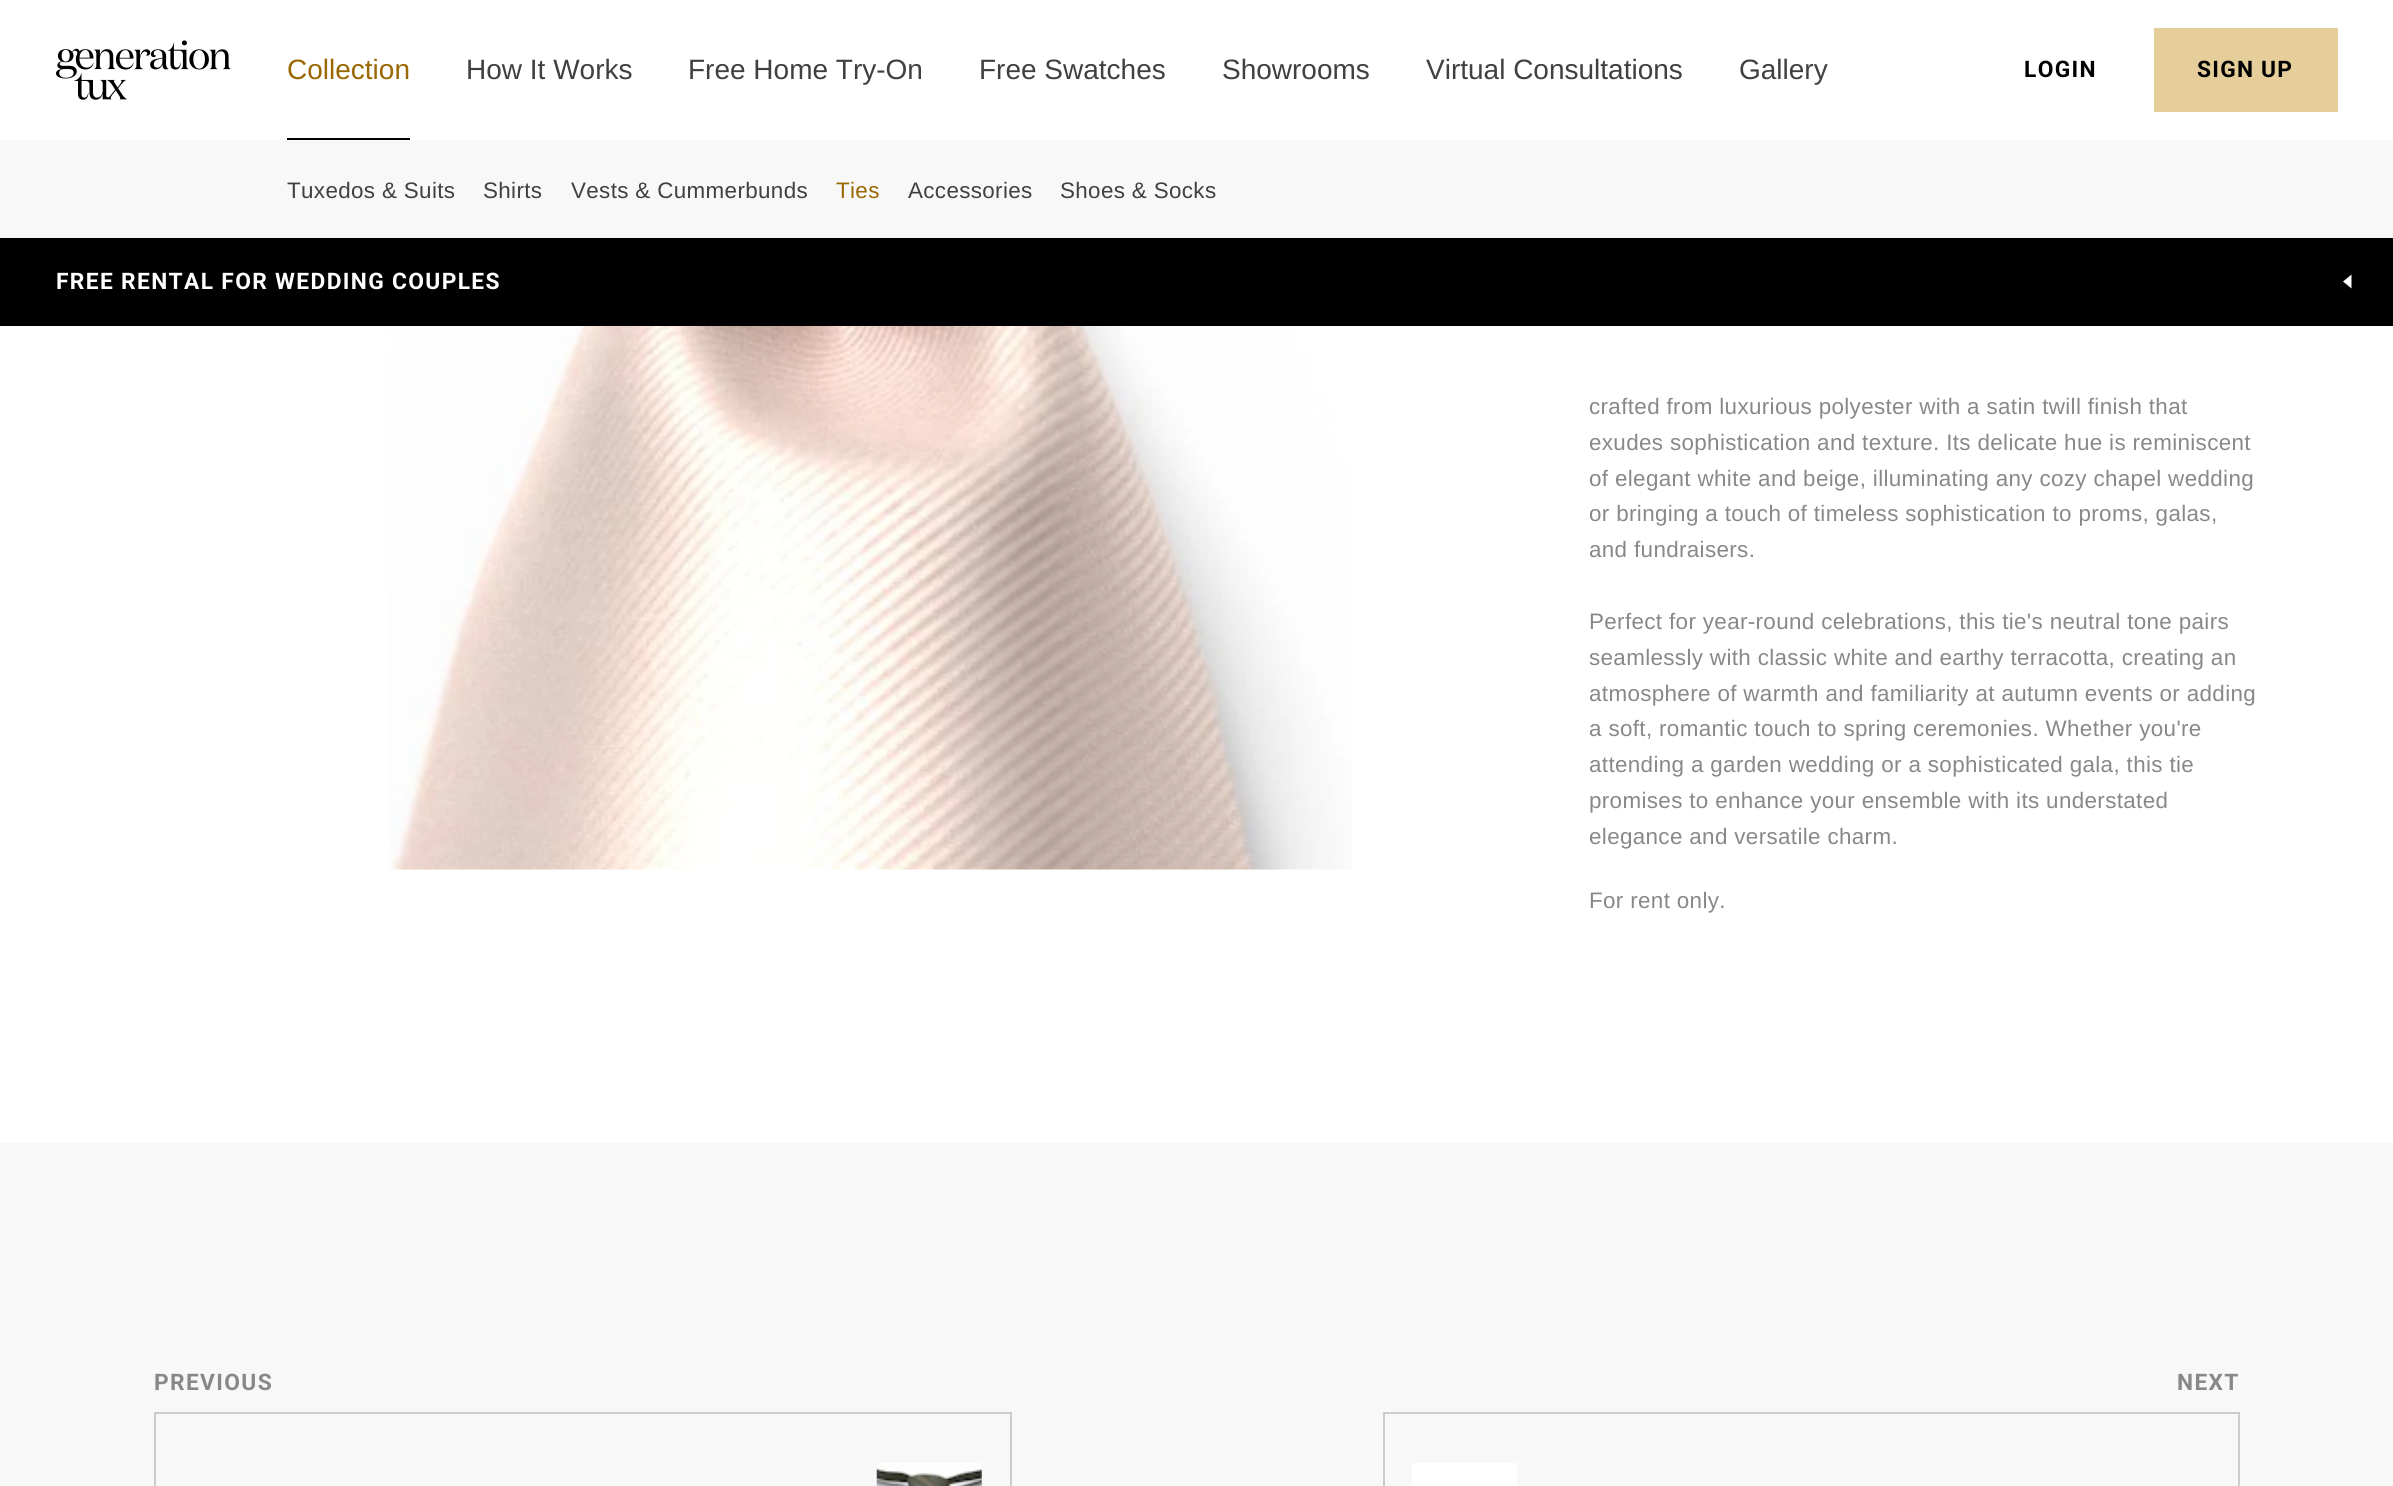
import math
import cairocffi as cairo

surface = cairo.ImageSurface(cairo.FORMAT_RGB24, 2393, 1486)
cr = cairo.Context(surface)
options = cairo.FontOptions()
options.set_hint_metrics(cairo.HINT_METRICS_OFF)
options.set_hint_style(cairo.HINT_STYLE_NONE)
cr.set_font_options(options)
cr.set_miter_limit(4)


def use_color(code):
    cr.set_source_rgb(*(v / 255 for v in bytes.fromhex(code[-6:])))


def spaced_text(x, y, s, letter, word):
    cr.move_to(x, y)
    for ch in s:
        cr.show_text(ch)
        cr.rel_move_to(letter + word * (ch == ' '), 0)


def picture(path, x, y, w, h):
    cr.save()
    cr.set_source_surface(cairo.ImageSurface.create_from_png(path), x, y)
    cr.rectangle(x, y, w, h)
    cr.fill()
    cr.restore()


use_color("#ffffff")
cr.paint()
picture("img1.png", 56, 40, 175, 60)
cr.select_font_face("Liberation Sans")
cr.set_font_size(28)
use_color("#9a6700")
cr.move_to(287, 79)
cr.show_text("Collection")
use_color("#000000")
cr.rectangle(287, 138, 123, 2)
cr.fill()
use_color("#404042")
cr.move_to(466, 79)
cr.show_text("How It Works")
cr.move_to(688, 79)
cr.show_text("Free Home Try-On")
cr.move_to(979, 79)
cr.show_text("Free Swatches")
cr.move_to(1222, 79)
cr.show_text("Showrooms")
cr.move_to(1426, 79)
cr.show_text("Virtual Consultations")
cr.move_to(1739, 79)
cr.show_text("Gallery")
cr.select_font_face("Roboto", cairo.FONT_SLANT_NORMAL, cairo.FONT_WEIGHT_BOLD)
cr.set_font_size(22.75)
use_color("#000000")
spaced_text(2024, 77, "LOGIN", 1.35, 0)
use_color("#e6ce9a")
cr.rectangle(2154, 28, 184, 84)
cr.fill()
use_color("#000000")
spaced_text(2197, 77, "SIGN UP", 1.25, 0)
use_color("#f8f8f8")
cr.rectangle(0, 140, 2393, 98)
cr.fill()
cr.select_font_face("Liberation Sans")
cr.set_font_size(22.4)
use_color("#404042")
spaced_text(287, 198, "Tuxedos & Suits", 0.35, 0)
spaced_text(483, 198, "Shirts", 0.35, 0)
spaced_text(571, 198, "Vests & Cummerbunds", 0.35, 0)
use_color("#9a6700")
spaced_text(836, 198, "Ties", 0.35, 0)
use_color("#404042")
spaced_text(908, 198, "Accessories", 0.35, 0)
spaced_text(1060, 198, "Shoes & Socks", 0.35, 0)
use_color("#000000")
cr.rectangle(0, 238, 2393, 88)
cr.fill()
cr.select_font_face("Roboto", cairo.FONT_SLANT_NORMAL, cairo.FONT_WEIGHT_BOLD)
cr.set_font_size(22.75)
use_color("#ffffff")
spaced_text(56, 289, "FREE RENTAL FOR WEDDING COUPLES", 1.35, 0)
cr.new_path()
cr.move_to(2351.5, 274.5)
cr.line_to(2343, 281.5)
cr.line_to(2351.5, 288.5)
cr.close_path()
cr.fill()
picture("img2.png", 389, 326, 963, 544)
cr.select_font_face("Liberation Sans")
cr.set_font_size(22.4)
use_color("#888888")
spaced_text(1589, 414, "crafted from luxurious polyester with a satin twill finish that", 0.35, 0)
spaced_text(1589, 450, "exudes sophistication and texture. Its delicate hue is reminiscent", 0.35, 0)
spaced_text(1589, 486, "of elegant white and beige, illuminating any cozy chapel wedding", 0.35, 0)
spaced_text(1589, 521, "or bringing a touch of timeless sophistication to proms, galas,", 0.35, 0)
spaced_text(1589, 557, "and fundraisers.", 0.35, 0)
spaced_text(1589, 629, "Perfect for year-round celebrations, this tie's neutral tone pairs", 0.35, 0)
spaced_text(1589, 665, "seamlessly with classic white and earthy terracotta, creating an", 0.35, 0)
spaced_text(1589, 701, "atmosphere of warmth and familiarity at autumn events or adding", 0.35, 0)
spaced_text(1589, 736, "a soft, romantic touch to spring ceremonies. Whether you're", 0.35, 0)
spaced_text(1589, 772, "attending a garden wedding or a sophisticated gala, this tie", 0.35, 0)
spaced_text(1589, 808, "promises to enhance your ensemble with its understated", 0.35, 0)
spaced_text(1589, 844, "elegance and versatile charm.", 0.35, 0)
spaced_text(1589, 908, "For rent only.", 0.35, 0)
use_color("#f8f8f8")
cr.rectangle(0, 1143, 2393, 343)
cr.fill()
cr.select_font_face("Roboto", cairo.FONT_SLANT_NORMAL, cairo.FONT_WEIGHT_BOLD)
cr.set_font_size(22.75)
use_color("#888888")
spaced_text(154, 1390, "PREVIOUS", 1.35, 0)
cr.rectangle(155, 1413, 856, 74)
use_color("#cccccc")
cr.stroke()
picture("img3.png", 876, 1463, 106, 23)
use_color("#888888")
spaced_text(2177, 1390, "NEXT", 1.35, 0)
cr.rectangle(1384, 1413, 855, 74)
use_color("#cccccc")
cr.stroke()
use_color("#ffffff")
cr.rectangle(1412, 1463, 105, 23)
cr.fill()
surface.write_to_png("result.png")
